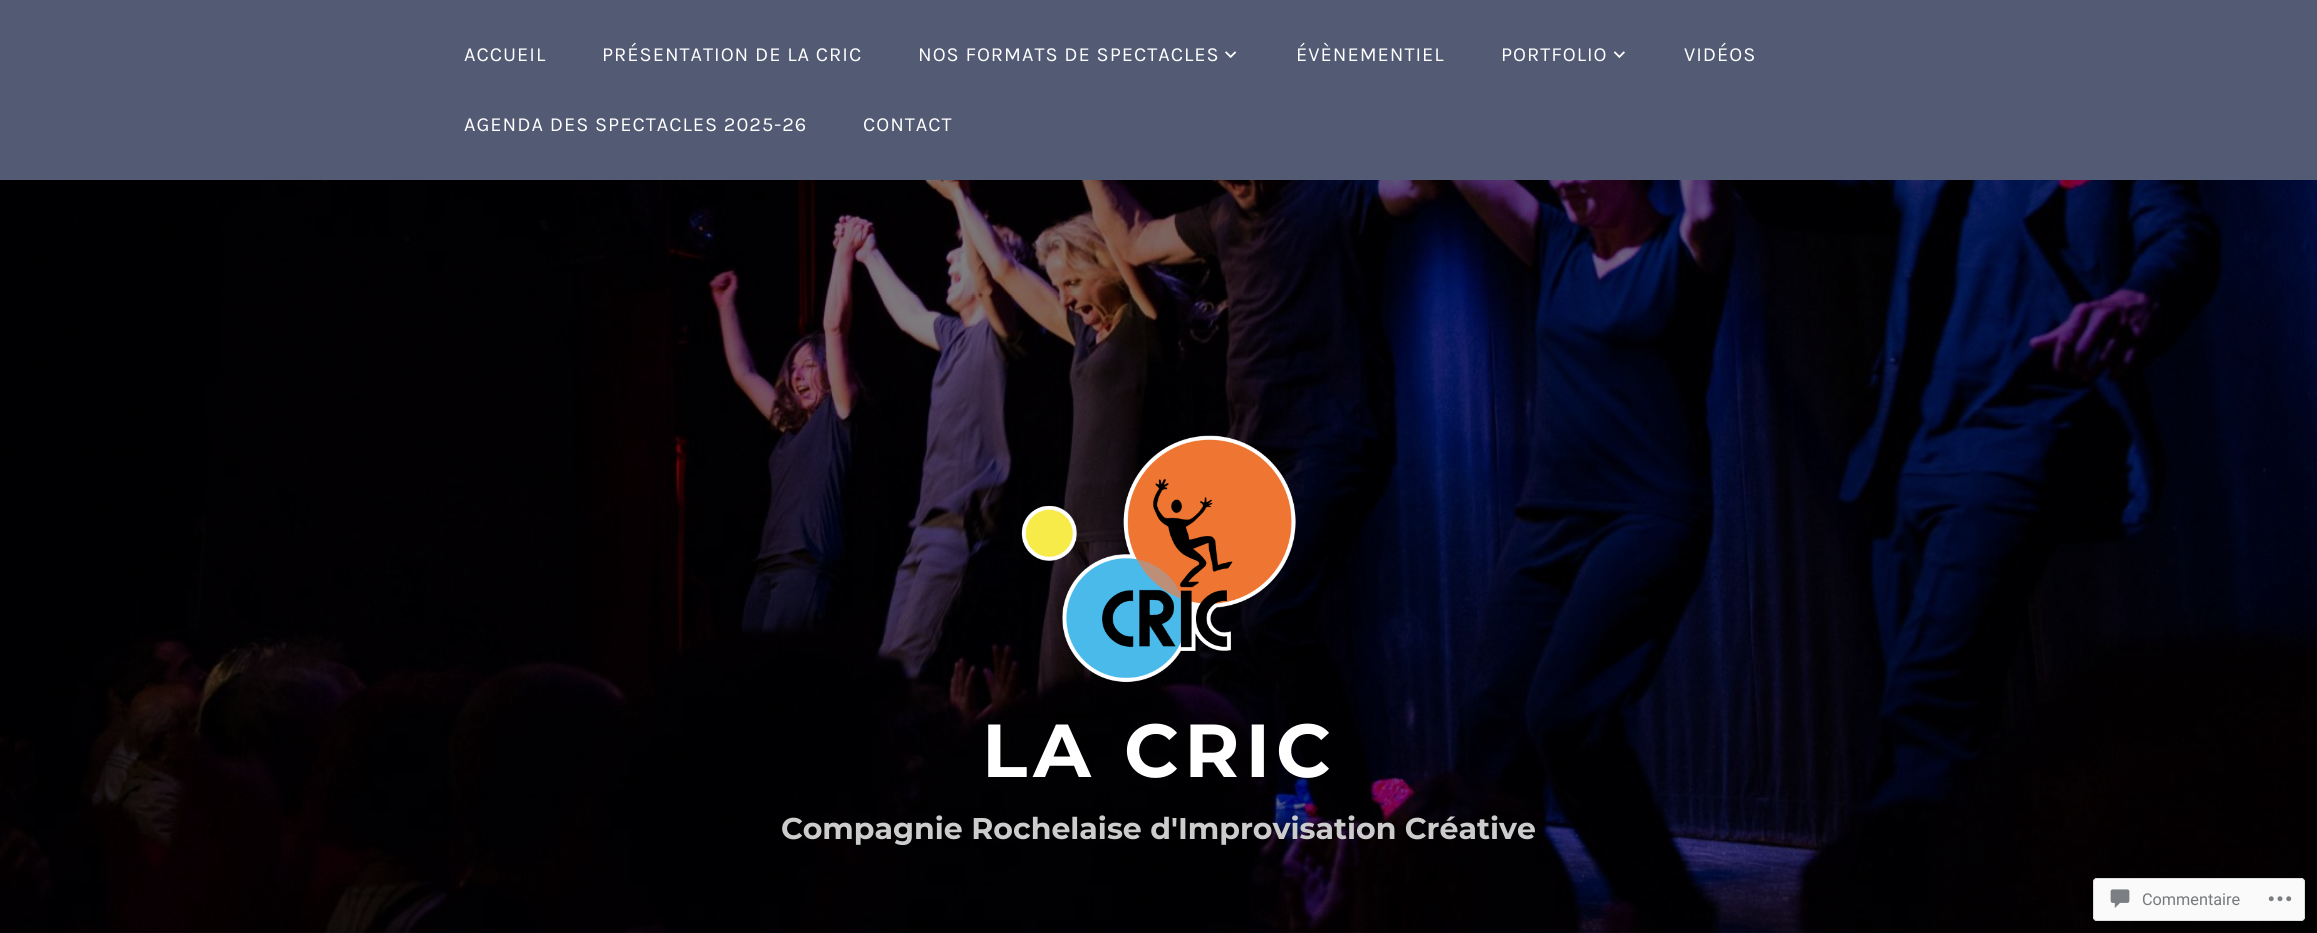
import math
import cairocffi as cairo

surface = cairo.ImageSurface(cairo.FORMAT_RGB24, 2317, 933)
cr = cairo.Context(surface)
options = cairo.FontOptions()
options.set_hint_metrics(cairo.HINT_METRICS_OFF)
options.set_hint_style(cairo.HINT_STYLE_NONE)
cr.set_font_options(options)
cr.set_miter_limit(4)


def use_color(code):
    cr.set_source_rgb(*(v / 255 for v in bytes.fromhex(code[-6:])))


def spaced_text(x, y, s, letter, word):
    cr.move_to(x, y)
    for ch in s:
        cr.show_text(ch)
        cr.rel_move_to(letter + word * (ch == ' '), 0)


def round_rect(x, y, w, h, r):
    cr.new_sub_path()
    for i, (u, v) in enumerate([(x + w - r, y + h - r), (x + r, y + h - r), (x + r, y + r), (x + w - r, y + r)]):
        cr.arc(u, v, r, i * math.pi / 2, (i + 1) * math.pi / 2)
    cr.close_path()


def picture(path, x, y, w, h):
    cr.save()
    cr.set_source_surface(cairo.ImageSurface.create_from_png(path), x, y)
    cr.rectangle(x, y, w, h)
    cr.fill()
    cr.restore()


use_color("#525a74")
cr.paint()
cr.select_font_face("Karla")
cr.set_font_size(20)
use_color("#ffffff")
spaced_text(464, 61, "ACCUEIL", 1, 0)
spaced_text(602, 61, "PRÉSENTATION DE LA CRIC", 1, 0)
spaced_text(918, 61, "NOS FORMATS DE SPECTACLES", 1, 0)
picture("img1.png", 1225, 51, 12, 7)
spaced_text(1296, 61, "ÉVÈNEMENTIEL", 1, 0)
spaced_text(1501, 61, "PORTFOLIO", 1, 0)
picture("img2.png", 1613, 51, 12, 7)
spaced_text(1684, 61, "VIDÉOS", 1, 0)
spaced_text(464, 131, "AGENDA DES SPECTACLES 2025-26", 1, 0)
spaced_text(863, 131, "CONTACT", 1, 0)
picture("img3.png", 0, 180, 2317, 753)
picture("img4.png", 1021, 435, 275, 248)
cr.select_font_face("Montserrat Thin")
cr.set_font_size(75)
spaced_text(982, 777, "LA CRIC", 6, 0)
cr.set_font_size(30)
use_color("#cccccc")
cr.move_to(781, 839)
cr.show_text("Compagnie Rochelaise d'Improvisation Créative")
cr.set_source_rgba(1, 1, 1, 0.98)
round_rect(2093, 878, 212, 43, 4)
cr.fill()
round_rect(2093.5, 878.5, 211, 42, 3.5)
cr.set_source_rgba(0.863, 0.863, 0.871, 0.98)
cr.set_line_width(1)
cr.stroke()
picture("img5.png", 2110, 889, 20, 19)
cr.select_font_face("Roboto")
cr.set_font_size(16.25)
use_color("#767a7f")
cr.move_to(2142, 905)
cr.show_text("Commentaire")
picture("img6.png", 2268, 896, 24, 6)
surface.write_to_png("result.png")
